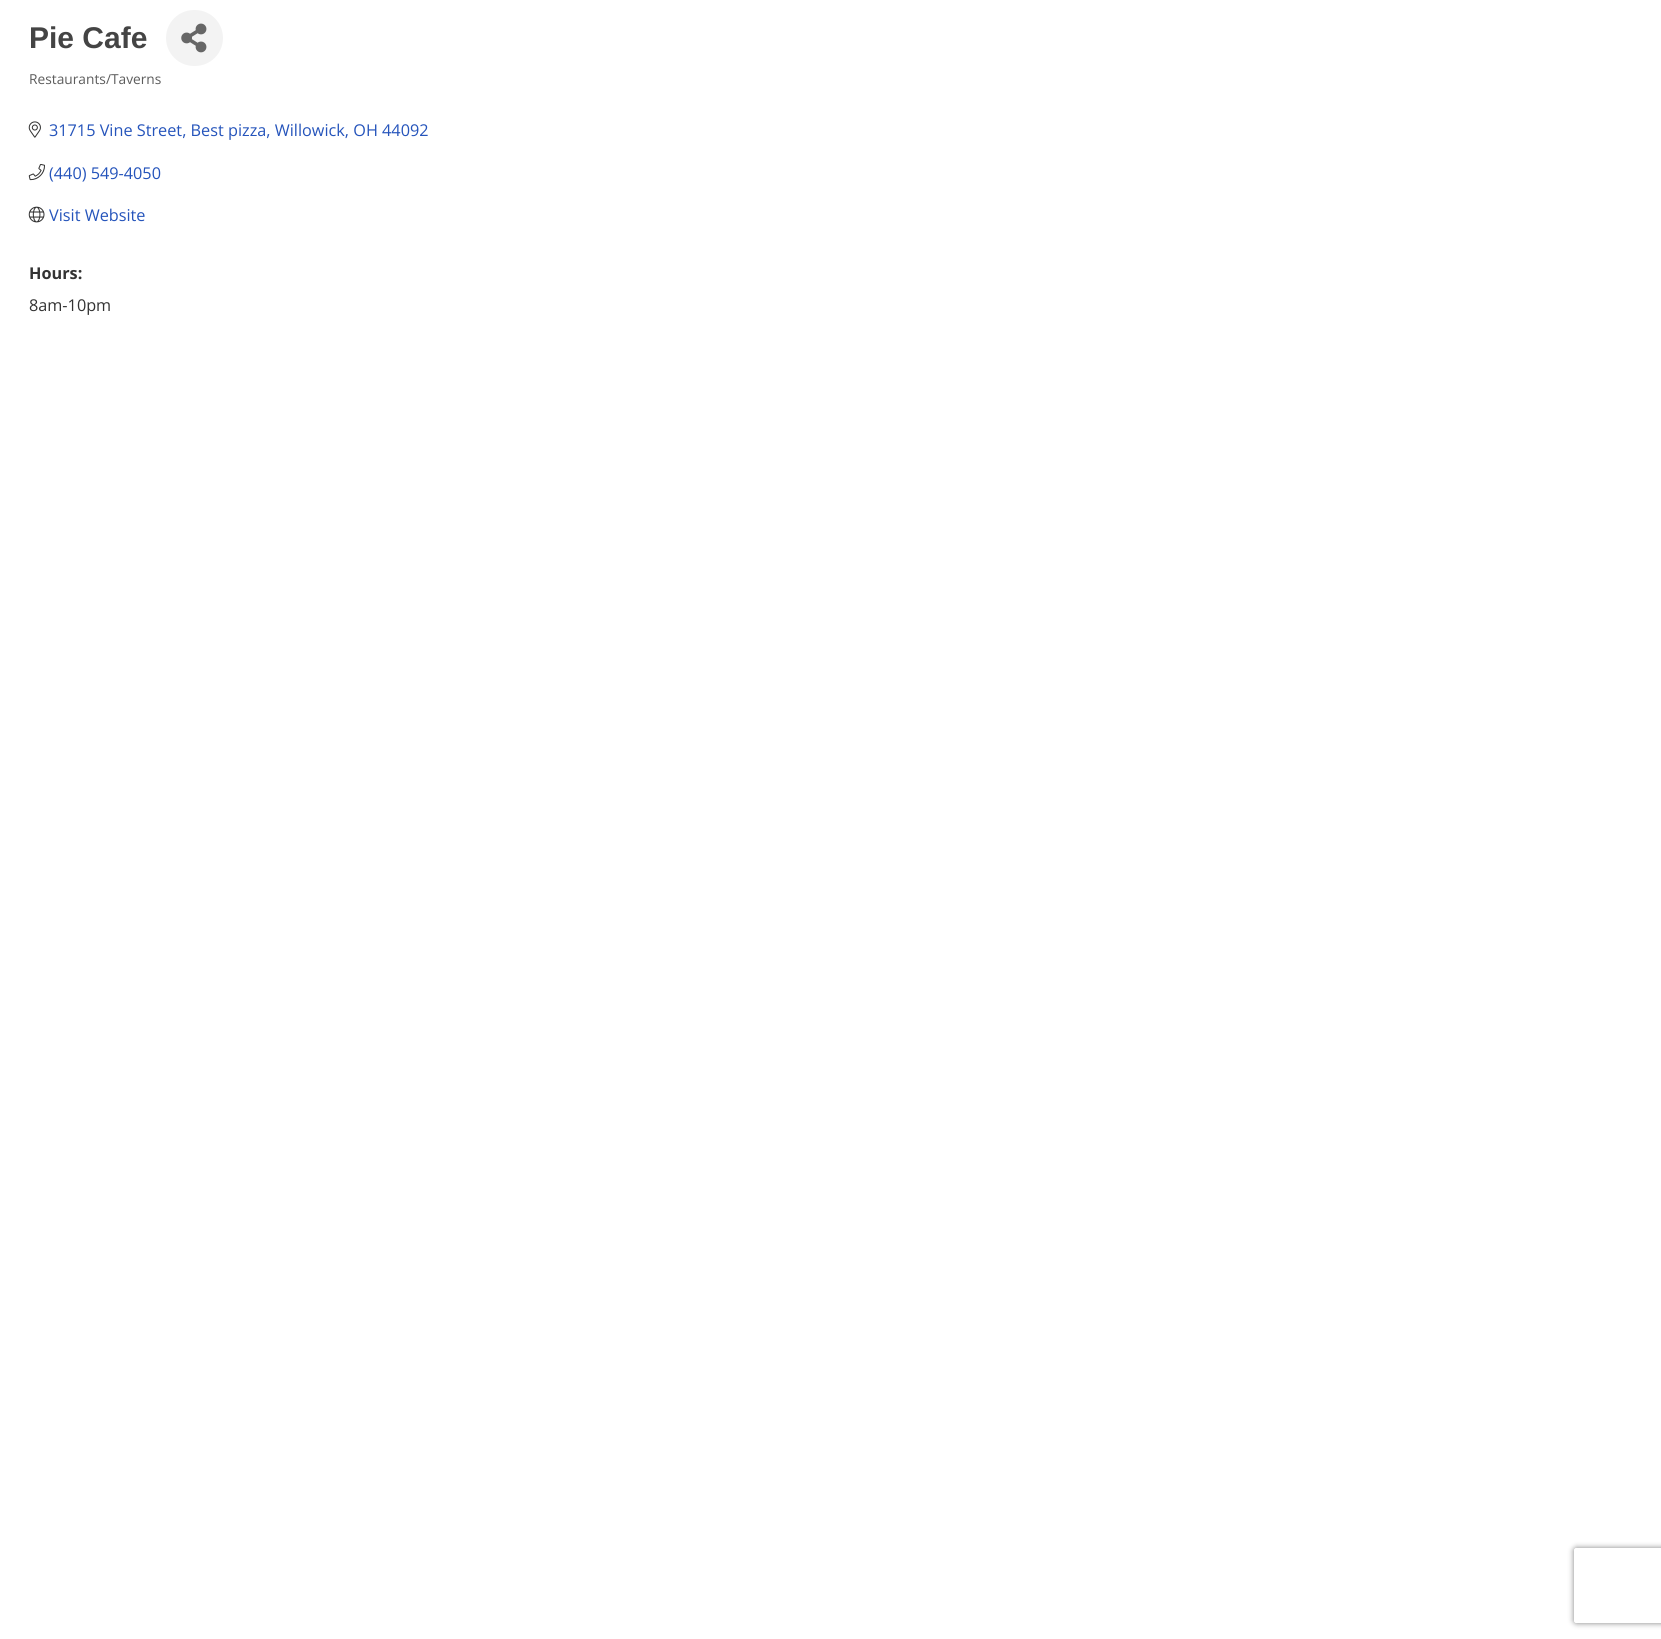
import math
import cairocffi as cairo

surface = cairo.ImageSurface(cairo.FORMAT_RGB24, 1661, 1639)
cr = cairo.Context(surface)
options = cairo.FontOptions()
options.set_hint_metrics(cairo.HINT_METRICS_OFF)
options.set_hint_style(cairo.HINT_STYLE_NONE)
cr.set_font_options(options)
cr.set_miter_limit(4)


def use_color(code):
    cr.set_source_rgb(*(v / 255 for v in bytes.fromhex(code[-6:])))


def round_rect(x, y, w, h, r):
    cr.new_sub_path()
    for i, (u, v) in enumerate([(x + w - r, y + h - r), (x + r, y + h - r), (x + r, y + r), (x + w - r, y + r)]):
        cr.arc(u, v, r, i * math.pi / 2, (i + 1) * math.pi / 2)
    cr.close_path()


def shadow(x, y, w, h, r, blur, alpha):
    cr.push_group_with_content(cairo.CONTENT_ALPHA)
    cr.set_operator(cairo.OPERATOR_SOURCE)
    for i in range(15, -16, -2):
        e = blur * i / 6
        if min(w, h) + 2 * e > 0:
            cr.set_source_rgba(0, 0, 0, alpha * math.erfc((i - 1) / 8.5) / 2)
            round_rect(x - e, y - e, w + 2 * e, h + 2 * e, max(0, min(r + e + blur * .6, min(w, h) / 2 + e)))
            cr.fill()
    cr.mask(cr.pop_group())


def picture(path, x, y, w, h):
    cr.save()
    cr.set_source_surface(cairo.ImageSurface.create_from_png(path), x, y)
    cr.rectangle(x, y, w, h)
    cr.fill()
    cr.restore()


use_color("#ffffff")
cr.paint()
cr.select_font_face("Liberation Sans", cairo.FONT_SLANT_NORMAL, cairo.FONT_WEIGHT_BOLD)
cr.set_font_size(30)
use_color("#444444")
cr.move_to(29, 48)
cr.show_text("Pie Cafe")
use_color("#f3f3f3")
round_rect(166, 10, 57, 56, 28)
cr.fill()
picture("img1.png", 181, 23, 26, 30)
cr.select_font_face("Open Sans")
cr.set_font_size(13.75)
use_color("#5c5c5c")
cr.move_to(29, 84)
cr.show_text("Restaurants/Taverns")
picture("img2.png", 28, 121, 13, 17)
cr.set_font_size(16.25)
use_color("#2554bb")
cr.move_to(49, 136)
cr.show_text("31715 Vine Street, Best pizza, Willowick, OH 44092")
picture("img3.png", 28, 164, 17, 17)
cr.move_to(49, 179)
cr.show_text("(440) 549-4050")
picture("img4.png", 28, 206, 17, 17)
cr.move_to(49, 221)
cr.show_text("Visit Website")
cr.select_font_face("Open Sans", cairo.FONT_SLANT_NORMAL, cairo.FONT_WEIGHT_BOLD)
use_color("#333333")
cr.move_to(29, 279)
cr.show_text("Hours:")
cr.select_font_face("Open Sans")
cr.move_to(29, 311)
cr.show_text("8am-10pm")
cr.save()
cr.set_fill_rule(cairo.FILL_RULE_EVEN_ODD)
cr.new_path()
cr.move_to(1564, 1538)
cr.line_to(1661, 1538)
cr.line_to(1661, 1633)
cr.line_to(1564, 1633)
cr.close_path()
cr.move_to(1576.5, 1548)
cr.line_to(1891.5, 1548)
cr.curve_to(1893, 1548, 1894, 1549, 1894, 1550.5)
cr.line_to(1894, 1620.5)
cr.curve_to(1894, 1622, 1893, 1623, 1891.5, 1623)
cr.line_to(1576.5, 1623)
cr.curve_to(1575, 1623, 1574, 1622, 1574, 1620.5)
cr.line_to(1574, 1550.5)
cr.curve_to(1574, 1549, 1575, 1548, 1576.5, 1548)
cr.close_path()
cr.clip()
use_color("#808080")
shadow(1574, 1548, 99, 75, 2.5, 3, 1)
cr.restore()
surface.write_to_png("result.png")
